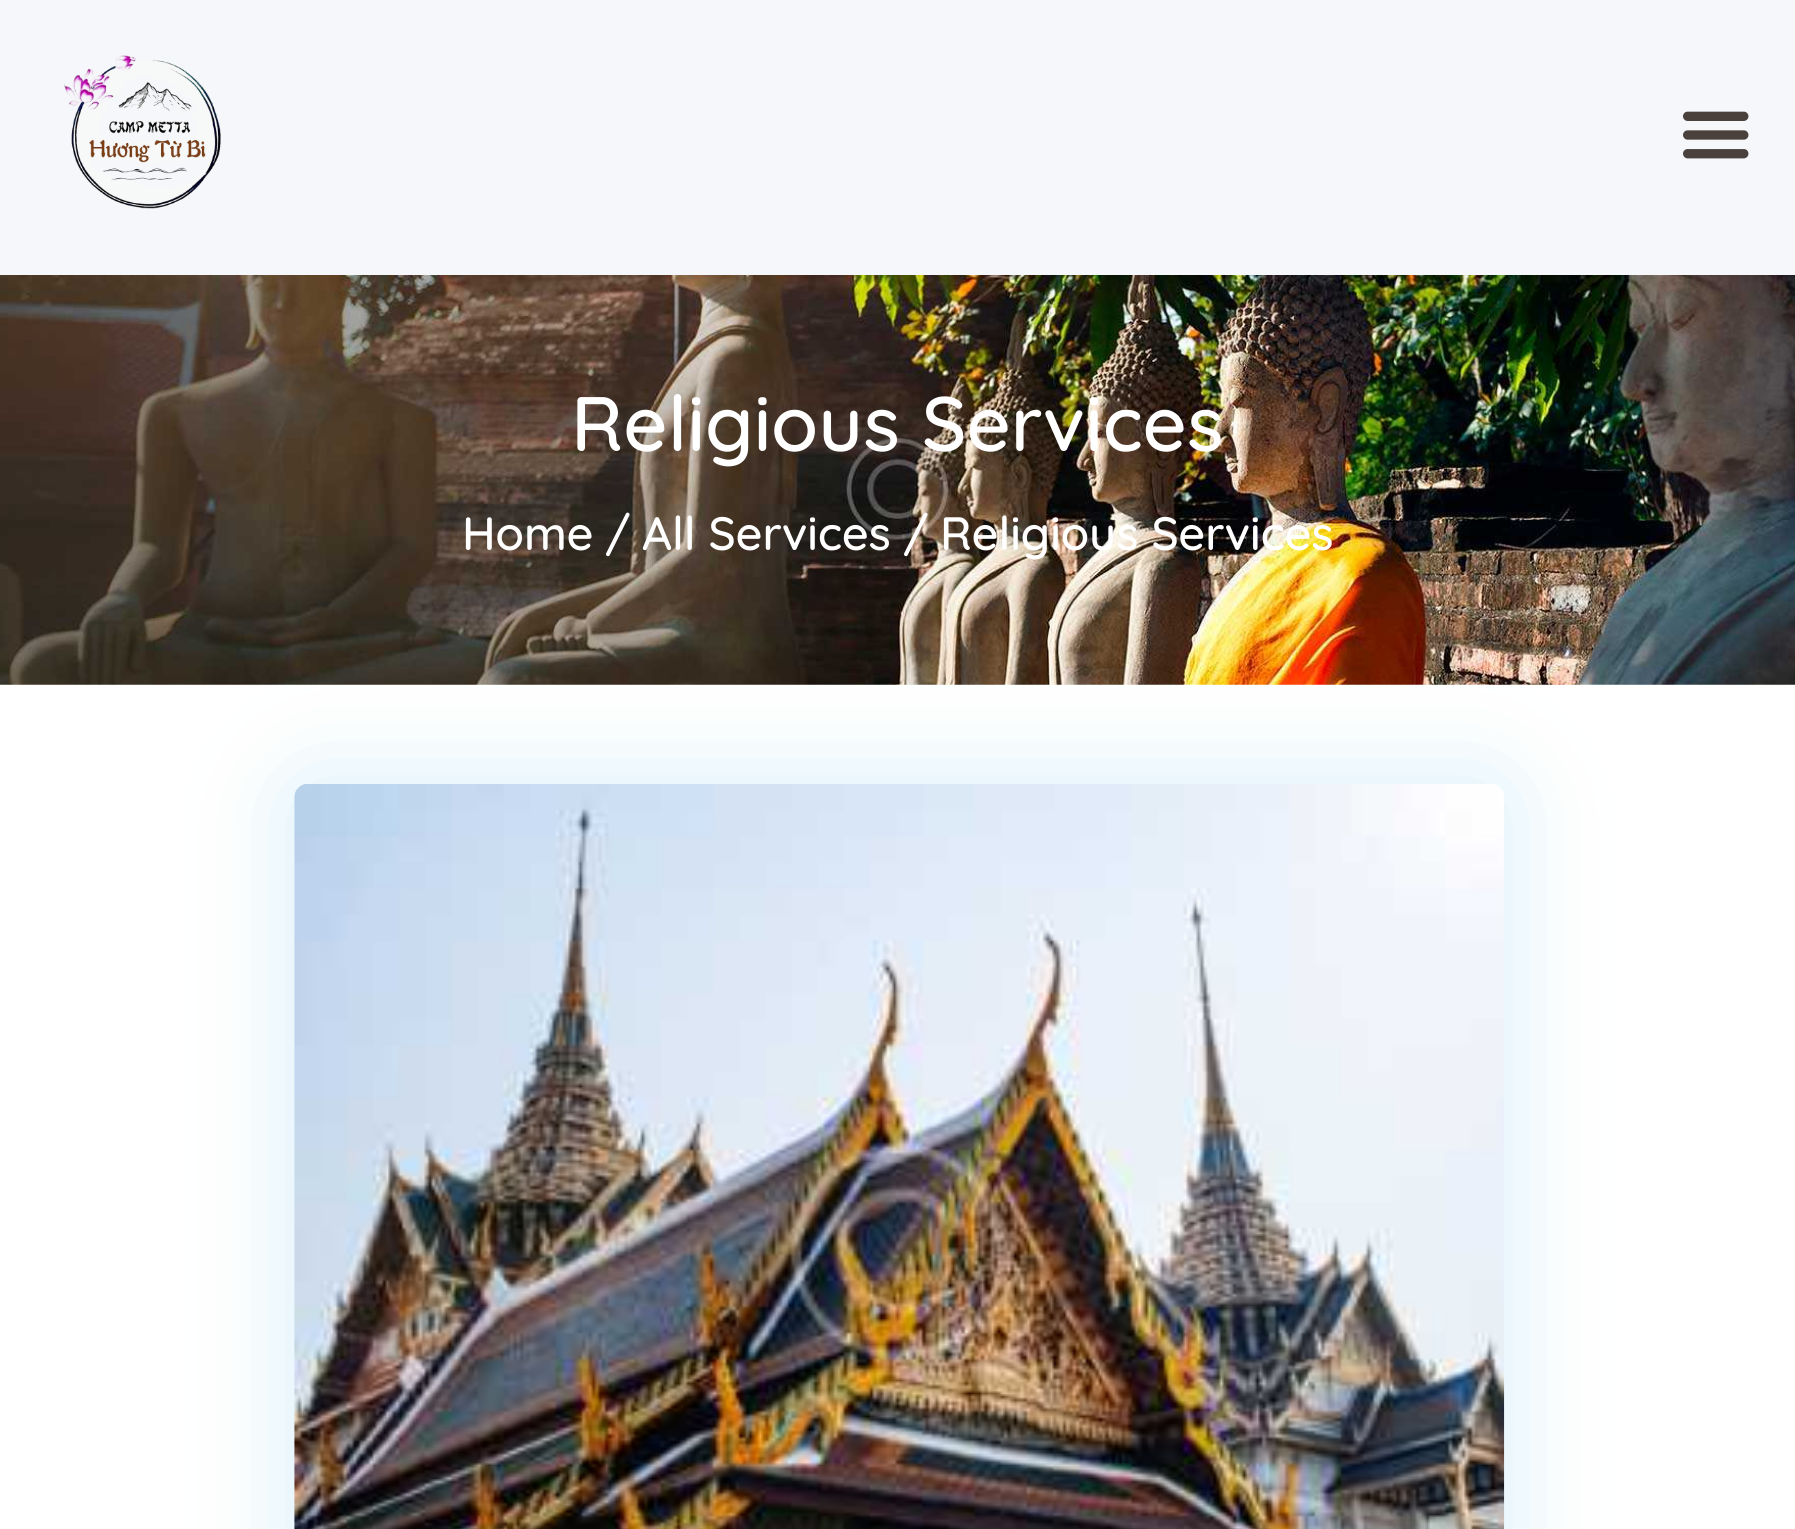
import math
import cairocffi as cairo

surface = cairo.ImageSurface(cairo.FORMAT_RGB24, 1795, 1529)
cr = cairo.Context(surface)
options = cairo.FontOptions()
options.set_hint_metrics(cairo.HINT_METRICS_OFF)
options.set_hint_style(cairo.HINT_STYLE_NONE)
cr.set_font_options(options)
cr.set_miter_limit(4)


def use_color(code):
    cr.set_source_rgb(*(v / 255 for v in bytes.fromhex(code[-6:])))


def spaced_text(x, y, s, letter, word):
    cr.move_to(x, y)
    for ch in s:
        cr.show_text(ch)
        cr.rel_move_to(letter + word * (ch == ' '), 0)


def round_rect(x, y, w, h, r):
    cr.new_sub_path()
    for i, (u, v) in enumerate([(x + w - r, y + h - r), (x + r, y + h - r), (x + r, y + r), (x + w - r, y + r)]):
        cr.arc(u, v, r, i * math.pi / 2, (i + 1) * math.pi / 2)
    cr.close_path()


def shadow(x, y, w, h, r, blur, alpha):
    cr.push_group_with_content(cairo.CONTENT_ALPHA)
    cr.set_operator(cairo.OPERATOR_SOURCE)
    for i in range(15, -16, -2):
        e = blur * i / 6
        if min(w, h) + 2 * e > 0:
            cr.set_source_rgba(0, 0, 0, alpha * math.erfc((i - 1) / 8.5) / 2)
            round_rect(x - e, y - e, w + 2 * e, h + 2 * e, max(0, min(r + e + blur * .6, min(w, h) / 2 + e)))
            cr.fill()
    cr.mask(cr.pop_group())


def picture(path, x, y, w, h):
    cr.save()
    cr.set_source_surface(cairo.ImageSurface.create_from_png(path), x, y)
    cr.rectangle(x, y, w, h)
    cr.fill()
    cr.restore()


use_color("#ffffff")
cr.paint()
use_color("#f6f7fa")
cr.rectangle(0, 0, 1795, 275)
cr.fill()
picture("img1.png", 64, 55, 157, 154)
picture("img2.png", 1683, 111, 66, 48)
use_color("#52bee5")
shadow(294, 784, 1210, 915, 14, 52, 0.24)
picture("img3.png", 0, 275, 1795, 410)
cr.select_font_face("Quicksand Medium")
cr.set_font_size(77)
use_color("#ffffff")
spaced_text(571, 451, "Religious Services", 0.25, 0)
cr.set_font_size(46.75)
cr.move_to(462, 550)
cr.show_text("Home")
cr.move_to(605, 550)
cr.show_text("/")
cr.move_to(642, 550)
cr.show_text("All Services")
cr.move_to(903, 550)
cr.show_text("/")
cr.move_to(940, 550)
cr.show_text("Religious Services")
picture("img4.png", 294, 784, 1211, 745)
gradient = cairo.LinearGradient(899, 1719, 899, 1496)
gradient.add_color_stop_rgba(0, 0.133, 0.173, 0.22, 0.8)
gradient.add_color_stop_rgba(0.9, 0.133, 0.173, 0.22, 0)
gradient.add_color_stop_rgba(1, 0.133, 0.173, 0.22, 0)
cr.set_source(gradient)
cr.rectangle(294, 1524, 1210, 5)
cr.fill()
surface.write_to_png("result.png")
